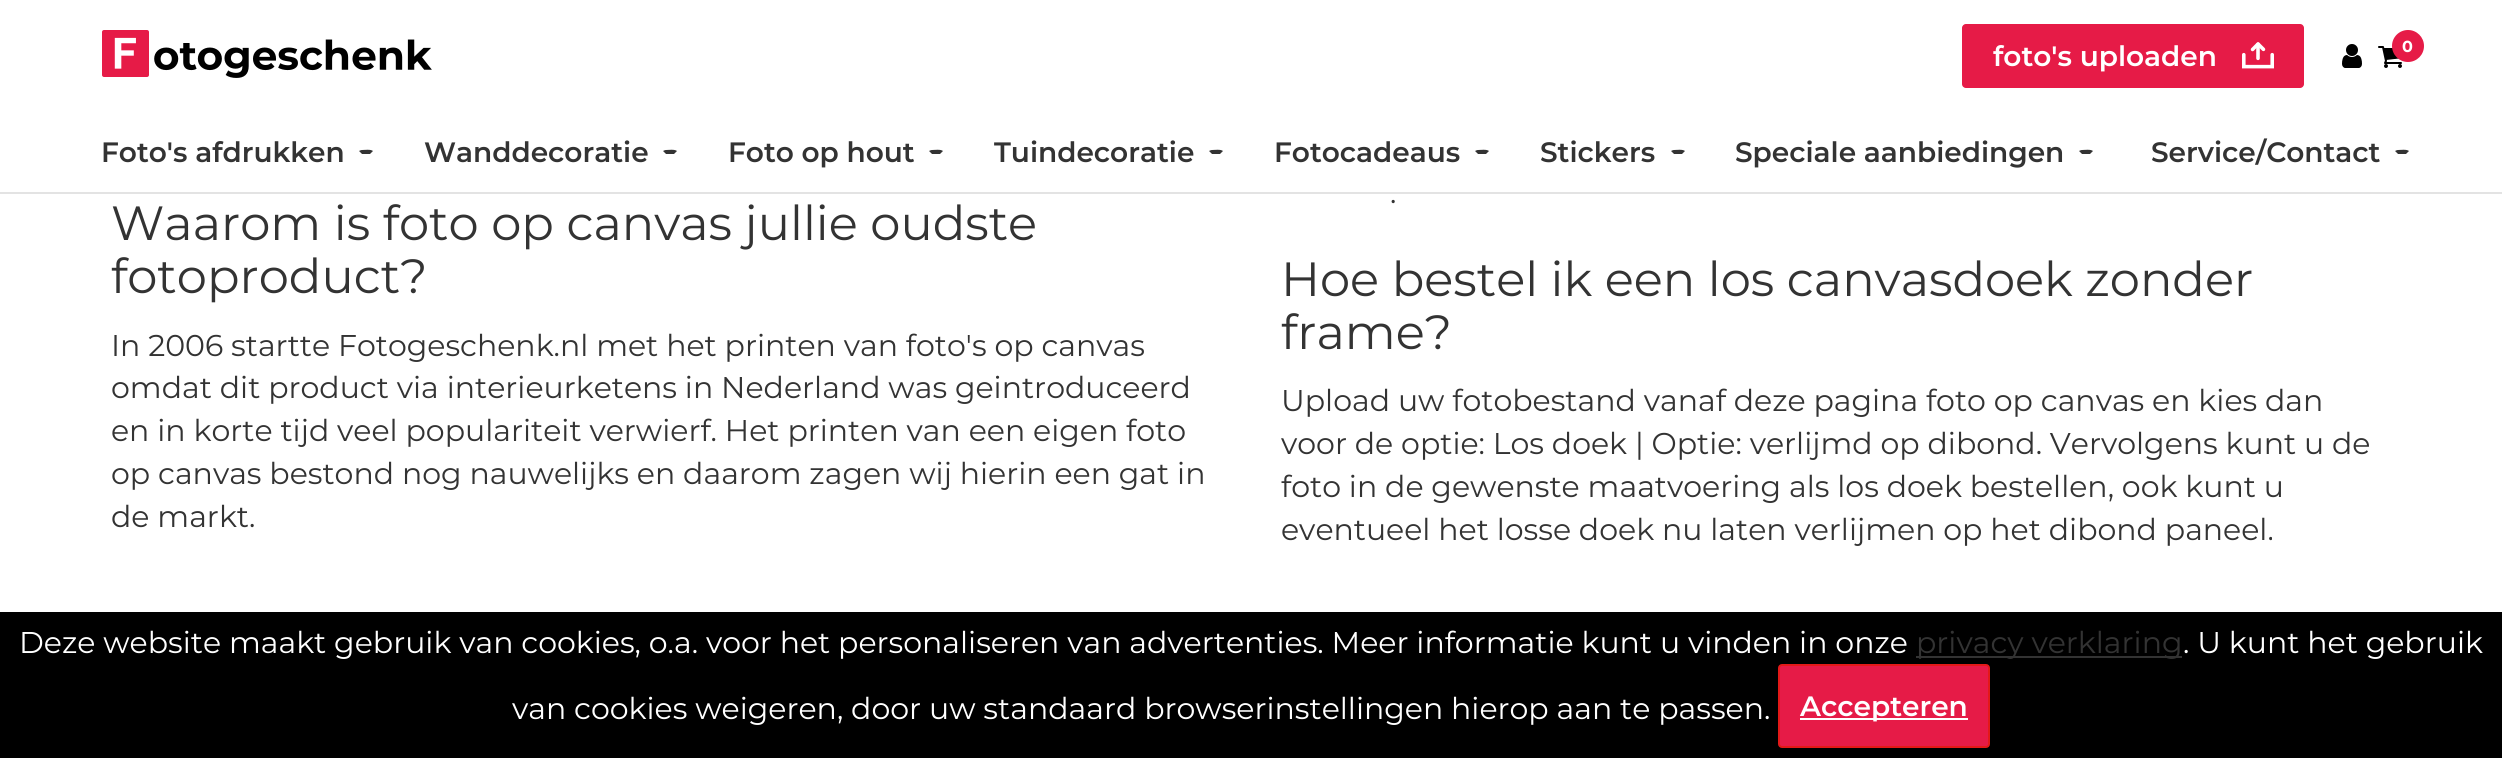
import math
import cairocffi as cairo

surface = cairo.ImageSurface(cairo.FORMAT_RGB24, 2502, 758)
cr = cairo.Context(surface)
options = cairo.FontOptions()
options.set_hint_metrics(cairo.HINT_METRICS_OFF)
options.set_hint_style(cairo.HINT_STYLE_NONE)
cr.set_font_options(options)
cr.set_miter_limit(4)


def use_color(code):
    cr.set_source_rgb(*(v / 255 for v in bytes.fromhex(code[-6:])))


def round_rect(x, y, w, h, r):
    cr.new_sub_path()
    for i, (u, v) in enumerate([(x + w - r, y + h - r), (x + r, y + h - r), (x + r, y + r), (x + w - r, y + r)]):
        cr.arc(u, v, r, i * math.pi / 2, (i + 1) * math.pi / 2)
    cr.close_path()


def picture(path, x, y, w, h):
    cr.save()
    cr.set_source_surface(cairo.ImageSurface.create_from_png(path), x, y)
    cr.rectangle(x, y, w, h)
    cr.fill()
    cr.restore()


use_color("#ffffff")
cr.paint()
use_color("#e3e3e3")
cr.rectangle(0, 192, 2502, 2)
cr.fill()
picture("img1.png", 102, 30, 330, 48)
use_color("#e61b47")
round_rect(1962, 24, 342, 64, 4)
cr.fill()
cr.select_font_face("Montserrat SemiBold")
cr.set_font_size(28)
use_color("#ffffff")
cr.move_to(1993, 66)
cr.show_text("foto's uploaden")
picture("img2.png", 2242, 42, 32, 27)
picture("img3.png", 2342, 44, 20, 24)
picture("img4.png", 2378, 46, 24, 22)
use_color("#e61b47")
cr.arc(2408, 46, 16, 0, 2 * math.pi)
cr.fill()
cr.select_font_face("Montserrat", cairo.FONT_SLANT_NORMAL, cairo.FONT_WEIGHT_BOLD)
cr.set_font_size(16)
use_color("#ffffff")
cr.move_to(2402, 52)
cr.show_text("0")
cr.select_font_face("Montserrat SemiBold")
cr.set_font_size(28)
use_color("#333333")
cr.move_to(101, 162)
cr.show_text("Foto's afdrukken")
cr.new_path()
cr.move_to(362, 150)
cr.curve_to(364.5, 150, 370.5, 149, 373, 151)
cr.line_to(370, 154)
cr.line_to(362, 154)
cr.line_to(359, 151)
cr.curve_to(360, 150.5, 361, 150, 362, 150)
cr.close_path()
cr.fill()
cr.move_to(424, 162)
cr.show_text("Wanddecoratie")
cr.new_path()
cr.move_to(666, 150)
cr.curve_to(668.5, 150, 674.5, 149, 677, 151)
cr.line_to(674, 154)
cr.line_to(666, 154)
cr.line_to(663, 151)
cr.curve_to(664, 150.5, 665, 150, 666, 150)
cr.close_path()
cr.fill()
cr.move_to(728, 162)
cr.show_text("Foto op hout")
cr.new_path()
cr.move_to(932, 150)
cr.curve_to(934.5, 150, 940.5, 149, 943, 151)
cr.line_to(940, 154)
cr.line_to(932, 154)
cr.line_to(929, 151)
cr.curve_to(930, 150.5, 931, 150, 932, 150)
cr.close_path()
cr.fill()
cr.move_to(994, 162)
cr.show_text("Tuindecoratie")
cr.new_path()
cr.move_to(1212, 150)
cr.curve_to(1214.5, 150, 1220.5, 149, 1223, 151)
cr.line_to(1220, 154)
cr.line_to(1212, 154)
cr.line_to(1209, 151)
cr.curve_to(1210, 150.5, 1211, 150, 1212, 150)
cr.close_path()
cr.fill()
cr.move_to(1274, 162)
cr.show_text("Fotocadeaus")
cr.new_path()
cr.move_to(1478, 150)
cr.curve_to(1480.5, 150, 1486.5, 149, 1489, 151)
cr.line_to(1486, 154)
cr.line_to(1478, 154)
cr.line_to(1475, 151)
cr.curve_to(1476, 150.5, 1477, 150, 1478, 150)
cr.close_path()
cr.fill()
cr.move_to(1540, 162)
cr.show_text("Stickers")
cr.new_path()
cr.move_to(1674, 150)
cr.curve_to(1676.5, 150, 1682.5, 149, 1685, 151)
cr.line_to(1682, 154)
cr.line_to(1674, 154)
cr.line_to(1671, 151)
cr.curve_to(1672, 150.5, 1673, 150, 1674, 150)
cr.close_path()
cr.fill()
cr.move_to(1735, 162)
cr.show_text("Speciale aanbiedingen")
cr.new_path()
cr.move_to(2082, 150)
cr.curve_to(2084.5, 150, 2090.5, 149, 2093, 151)
cr.line_to(2090, 154)
cr.line_to(2082, 154)
cr.line_to(2079, 151)
cr.curve_to(2080, 150.5, 2081, 150, 2082, 150)
cr.close_path()
cr.fill()
cr.move_to(2151, 162)
cr.show_text("Service/Contact")
cr.new_path()
cr.move_to(2398, 150)
cr.curve_to(2400.5, 150, 2406.5, 149, 2409, 151)
cr.line_to(2406, 154)
cr.line_to(2398, 154)
cr.line_to(2395, 151)
cr.curve_to(2396, 150.5, 2397, 150, 2398, 150)
cr.close_path()
cr.fill()
cr.select_font_face("Montserrat")
cr.set_font_size(30)
cr.move_to(1390, 203)
cr.show_text(".")
cr.set_font_size(48)
cr.move_to(111, 240)
cr.show_text("Waarom is foto op canvas jullie oudste")
cr.move_to(111, 293)
cr.show_text("fotoproduct?")
cr.set_font_size(30)
cr.move_to(111, 356)
cr.show_text("In 2006 startte Fotogeschenk.nl met het printen van foto's op canvas")
cr.move_to(111, 398)
cr.show_text("omdat dit product via interieurketens in Nederland was geintroduceerd")
cr.move_to(111, 441)
cr.show_text("en in korte tijd veel populariteit verwierf. Het printen van een eigen foto")
cr.move_to(111, 484)
cr.show_text("op canvas bestond nog nauwelijks en daarom zagen wij hierin een gat in")
cr.move_to(111, 527)
cr.show_text("de markt.")
cr.set_font_size(48)
cr.move_to(1281, 296)
cr.show_text("Hoe bestel ik een los canvasdoek zonder")
cr.move_to(1281, 349)
cr.show_text("frame?")
cr.set_font_size(30)
cr.move_to(1281, 411)
cr.show_text("Upload uw fotobestand vanaf deze pagina foto op canvas en kies dan")
cr.move_to(1281, 454)
cr.show_text("voor de optie: Los doek | Optie: verlijmd op dibond. Vervolgens kunt u de")
cr.move_to(1281, 497)
cr.show_text("foto in de gewenste maatvoering als los doek bestellen, ook kunt u")
cr.move_to(1281, 540)
cr.show_text("eventueel het losse doek nu laten verlijmen op het dibond paneel.")
use_color("#000000")
cr.rectangle(0, 612, 2502, 146)
cr.fill()
use_color("#ffffff")
cr.move_to(19, 653)
cr.show_text("Deze website maakt gebruik van cookies, o.a. voor het personaliseren van advertenties. Meer informatie kunt u vinden in onze")
use_color("#333333")
cr.rectangle(1916, 656, 266, 2)
cr.fill()
cr.move_to(1916, 653)
cr.show_text("privacy verklaring")
use_color("#ffffff")
cr.move_to(2183, 653)
cr.show_text(". U kunt het gebruik")
cr.move_to(512, 719)
cr.show_text("van cookies weigeren, door uw standaard browserinstellingen hierop aan te passen.")
use_color("#e61b47")
round_rect(1779, 665, 210, 82, 3)
cr.fill_preserve()
use_color("#e31918")
cr.stroke()
use_color("#ffffff")
cr.rectangle(1800, 718, 168, 2)
cr.fill()
cr.select_font_face("Montserrat SemiBold")
cr.set_font_size(28)
cr.move_to(1800, 716)
cr.show_text("Accepteren")
surface.write_to_png("result.png")
